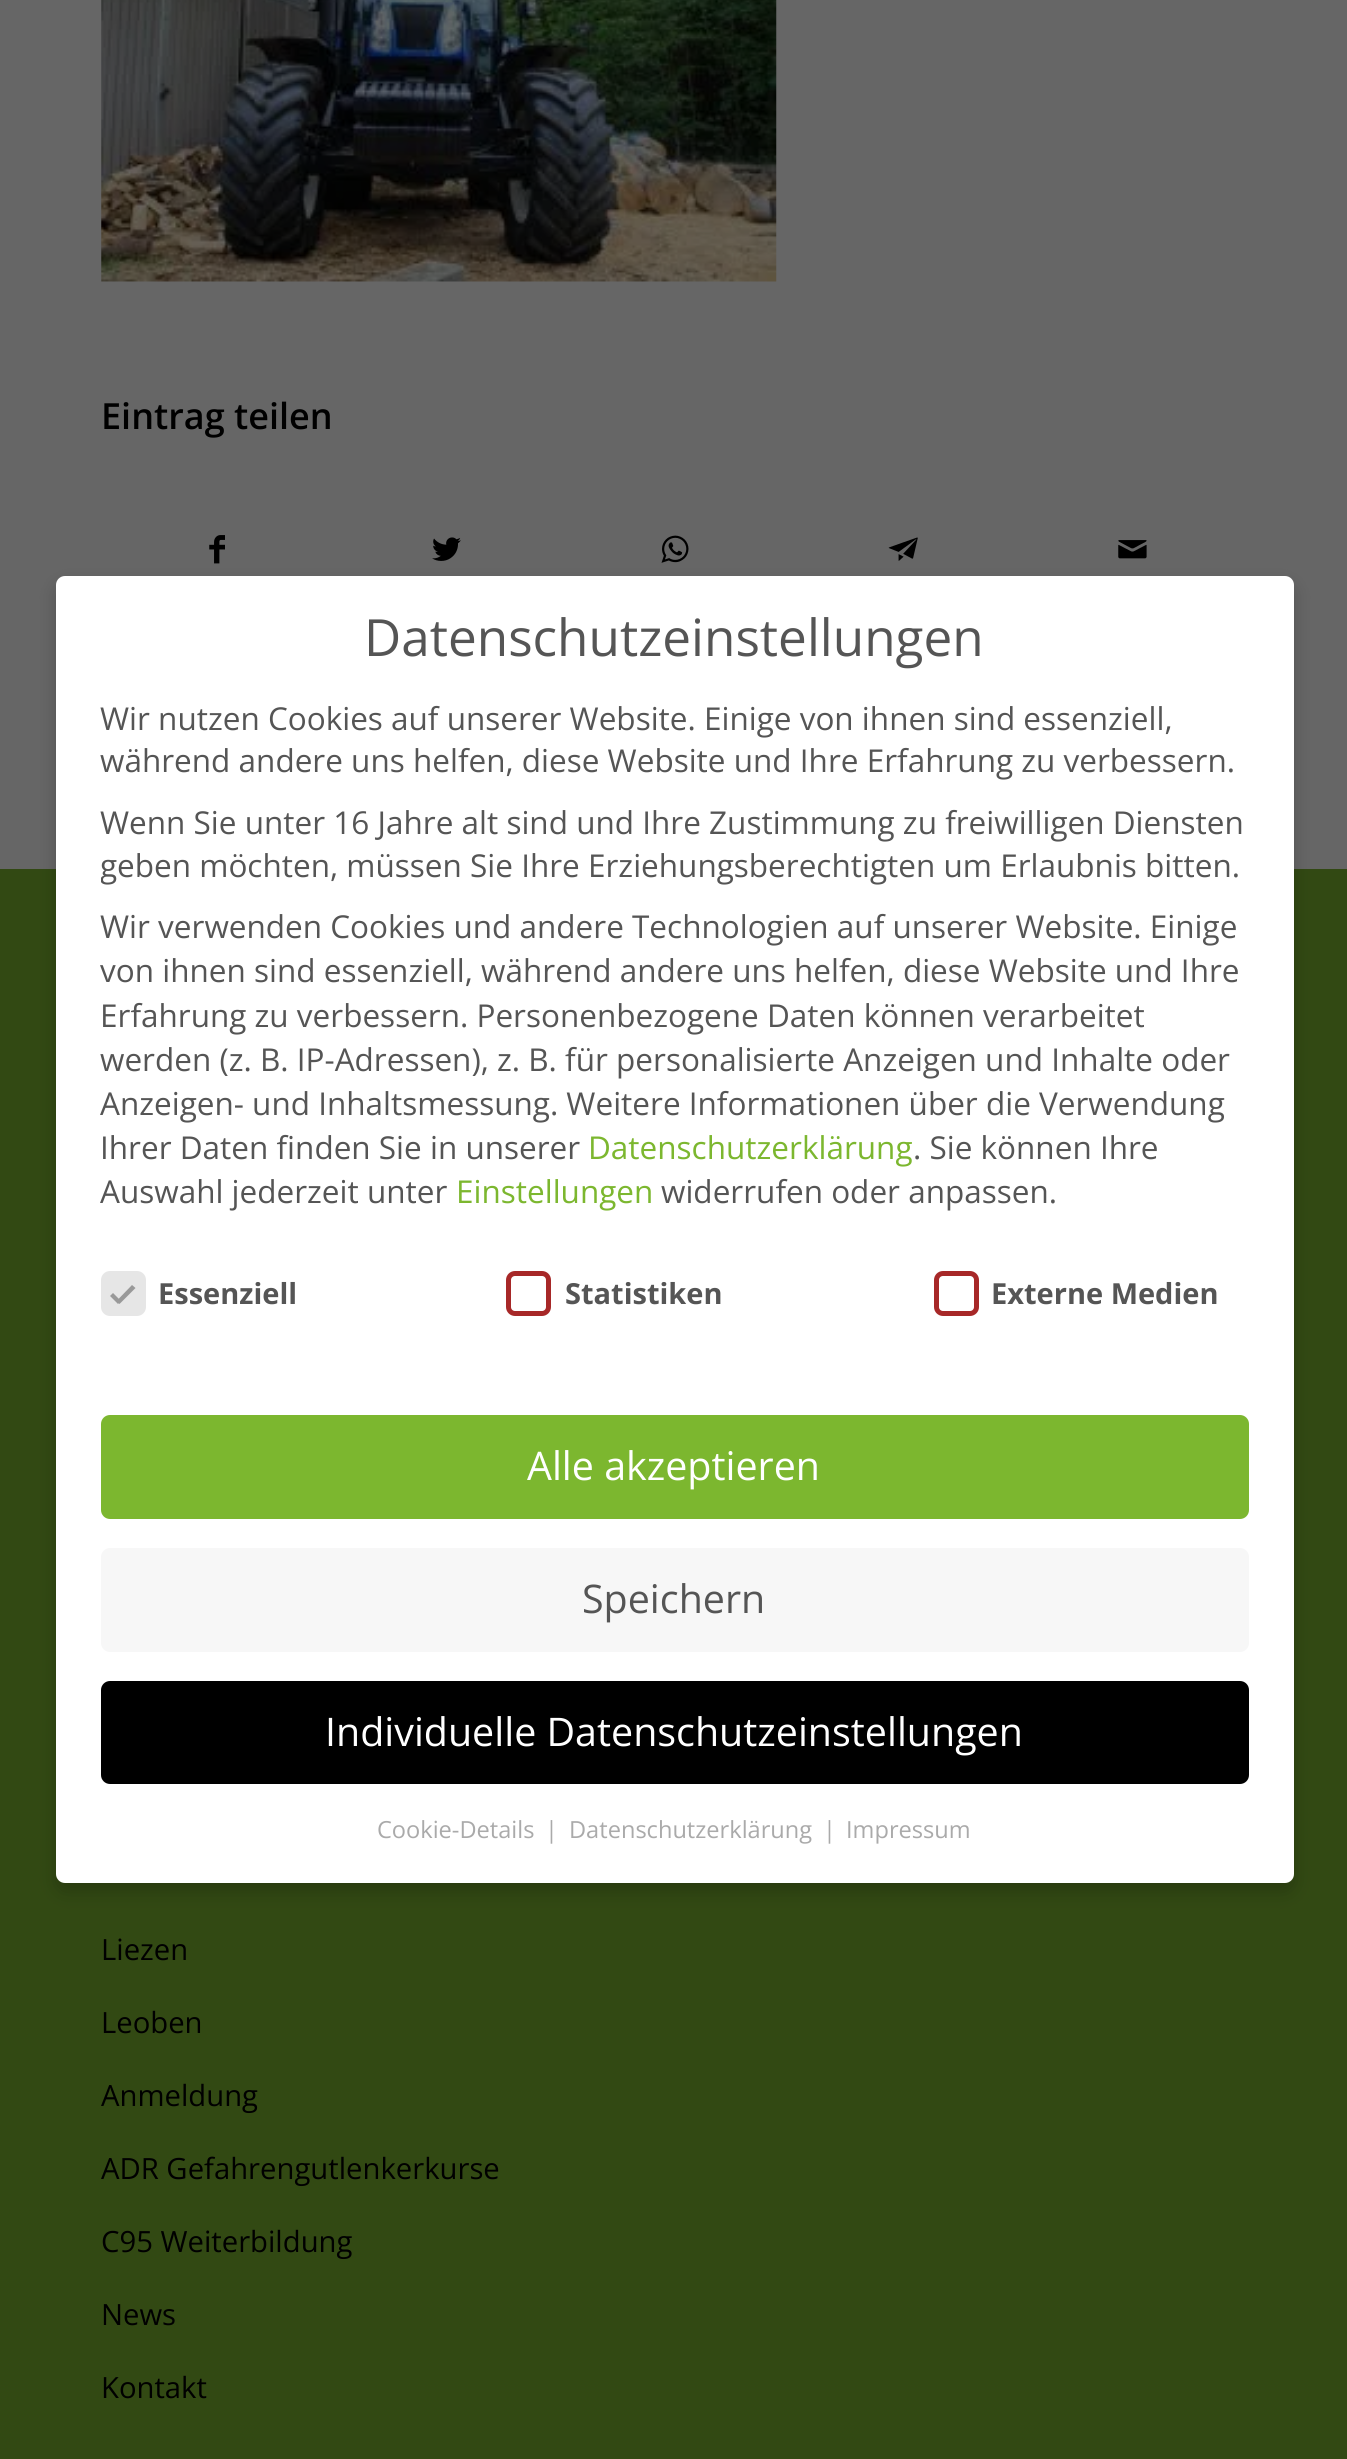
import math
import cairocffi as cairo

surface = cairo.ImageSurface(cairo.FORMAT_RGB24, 1347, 2459)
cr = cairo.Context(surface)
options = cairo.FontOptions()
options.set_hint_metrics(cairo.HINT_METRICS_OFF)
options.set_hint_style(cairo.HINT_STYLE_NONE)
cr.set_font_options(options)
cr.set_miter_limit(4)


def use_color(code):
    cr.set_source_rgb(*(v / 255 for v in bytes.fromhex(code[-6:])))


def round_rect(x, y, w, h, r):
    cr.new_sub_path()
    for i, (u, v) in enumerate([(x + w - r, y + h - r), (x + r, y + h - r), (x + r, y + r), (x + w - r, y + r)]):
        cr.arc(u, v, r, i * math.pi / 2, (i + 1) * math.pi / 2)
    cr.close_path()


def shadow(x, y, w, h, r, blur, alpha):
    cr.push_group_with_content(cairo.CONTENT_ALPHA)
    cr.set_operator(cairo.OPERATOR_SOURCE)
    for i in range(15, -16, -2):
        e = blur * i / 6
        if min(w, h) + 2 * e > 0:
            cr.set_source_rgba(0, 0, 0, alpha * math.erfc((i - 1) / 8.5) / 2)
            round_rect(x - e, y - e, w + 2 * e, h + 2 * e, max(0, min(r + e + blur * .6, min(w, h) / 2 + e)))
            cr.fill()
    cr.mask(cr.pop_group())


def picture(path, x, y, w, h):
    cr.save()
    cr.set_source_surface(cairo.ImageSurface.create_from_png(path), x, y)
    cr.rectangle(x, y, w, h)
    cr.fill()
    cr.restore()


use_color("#666666")
cr.paint()
picture("img1.png", 101, 0, 676, 282)
cr.select_font_face("Open Sans SemiBold")
cr.set_font_size(36)
use_color("#000000")
cr.move_to(101, 429)
cr.show_text("Eintrag teilen")
picture("img2.png", 209, 535, 16, 29)
picture("img3.png", 432, 537, 29, 24)
picture("img4.png", 661, 535, 28, 28)
picture("img5.png", 888, 537, 30, 24)
picture("img6.png", 1118, 540, 29, 19)
use_color("#324913")
cr.rectangle(0, 869, 1347, 1590)
cr.fill()
cr.select_font_face("Open Sans")
cr.set_font_size(29.25)
use_color("#000000")
cr.move_to(101, 1960)
cr.show_text("Liezen")
cr.move_to(101, 2033)
cr.show_text("Leoben")
cr.move_to(101, 2106)
cr.show_text("Anmeldung")
cr.move_to(101, 2179)
cr.show_text("ADR Gefahrengutlenkerkurse")
cr.move_to(101, 2252)
cr.show_text("C95 Weiterbildung")
cr.move_to(101, 2325)
cr.show_text("News")
cr.move_to(101, 2398)
cr.show_text("Kontakt")
use_color("#000000")
shadow(56, 585, 1238, 1307, 9, 9, 0.2)
use_color("#ffffff")
round_rect(56, 576, 1238, 1307, 9)
cr.fill()
cr.set_font_size(51.25)
use_color("#555555")
cr.move_to(364, 656)
cr.show_text("Datenschutzeinstellungen")
cr.set_font_size(31.5)
cr.move_to(100, 730)
cr.show_text("Wir nutzen Cookies auf unserer Website. Einige von ihnen sind essenziell,")
cr.move_to(100, 772)
cr.show_text("während andere uns helfen, diese Website und Ihre Erfahrung zu verbessern.")
cr.move_to(100, 834)
cr.show_text("Wenn Sie unter 16 Jahre alt sind und Ihre Zustimmung zu freiwilligen Diensten")
cr.save()
cr.rectangle(101, 695, 1148, 518)
cr.clip()
cr.move_to(100, 877)
cr.show_text("geben möchten, müssen Sie Ihre Erziehungsberechtigten um Erlaubnis bitten.")
cr.restore()
cr.move_to(100, 938)
cr.show_text("Wir verwenden Cookies und andere Technologien auf unserer Website. Einige")
cr.move_to(100, 982)
cr.show_text("von ihnen sind essenziell, während andere uns helfen, diese Website und Ihre")
cr.move_to(100, 1027)
cr.show_text("Erfahrung zu verbessern. Personenbezogene Daten können verarbeitet")
cr.move_to(100, 1071)
cr.show_text("werden (z. B. IP-Adressen), z. B. für personalisierte Anzeigen und Inhalte oder")
cr.move_to(100, 1115)
cr.show_text("Anzeigen- und Inhaltsmessung. Weitere Informationen über die Verwendung")
cr.move_to(100, 1159)
cr.show_text("Ihrer Daten finden Sie in unserer")
use_color("#7cb72f")
cr.move_to(588, 1159)
cr.show_text("Datenschutzerklärung")
use_color("#555555")
cr.move_to(913, 1159)
cr.show_text(". Sie können Ihre")
cr.move_to(100, 1203)
cr.show_text("Auswahl jederzeit unter")
use_color("#7cb72f")
cr.move_to(456, 1203)
cr.show_text("Einstellungen")
use_color("#555555")
cr.move_to(661, 1203)
cr.show_text("widerrufen oder anpassen.")
use_color("#e6e6e6")
round_rect(103.5, 1273.5, 40, 40, 6.5)
cr.fill_preserve()
cr.set_line_width(5)
cr.stroke()
use_color("#999999")
cr.new_path()
cr.move_to(132, 1285)
cr.line_to(135.5, 1288)
cr.line_to(119.5, 1304)
cr.line_to(116.5, 1301)
cr.close_path()
cr.fill()
cr.new_path()
cr.move_to(113, 1293)
cr.line_to(121, 1301)
cr.line_to(118, 1304)
cr.line_to(110, 1296)
cr.close_path()
cr.fill()
cr.select_font_face("Open Sans", cairo.FONT_SLANT_NORMAL, cairo.FONT_WEIGHT_BOLD)
cr.set_font_size(29)
use_color("#555555")
cr.move_to(158, 1304)
cr.show_text("Essenziell")
round_rect(508.5, 1273.5, 40, 40, 6.5)
use_color("#a72828")
cr.stroke()
use_color("#555555")
cr.move_to(565, 1304)
cr.show_text("Statistiken")
round_rect(936.5, 1273.5, 40, 40, 6.5)
use_color("#a72828")
cr.stroke()
use_color("#555555")
cr.move_to(991, 1304)
cr.show_text("Externe Medien")
use_color("#7cb72f")
round_rect(101, 1415, 1148, 104, 9)
cr.fill()
cr.select_font_face("Open Sans")
cr.set_font_size(39.4)
use_color("#ffffff")
cr.move_to(527, 1480)
cr.show_text("Alle akzeptieren")
use_color("#f7f7f7")
round_rect(101, 1548, 1148, 104, 9)
cr.fill()
use_color("#555555")
cr.move_to(582, 1613)
cr.show_text("Speichern")
use_color("#000000")
round_rect(101, 1681, 1148, 103, 9)
cr.fill()
use_color("#ffffff")
cr.move_to(325, 1746)
cr.show_text("Individuelle Datenschutzeinstellungen")
cr.set_font_size(23.6)
use_color("#aaaaaa")
cr.move_to(377, 1838)
cr.show_text("Cookie-Details")
cr.move_to(545, 1838)
cr.show_text("|")
cr.move_to(569, 1838)
cr.show_text("Datenschutzerklärung")
cr.move_to(823, 1838)
cr.show_text("|")
cr.move_to(846, 1838)
cr.show_text("Impressum")
surface.write_to_png("result.png")
